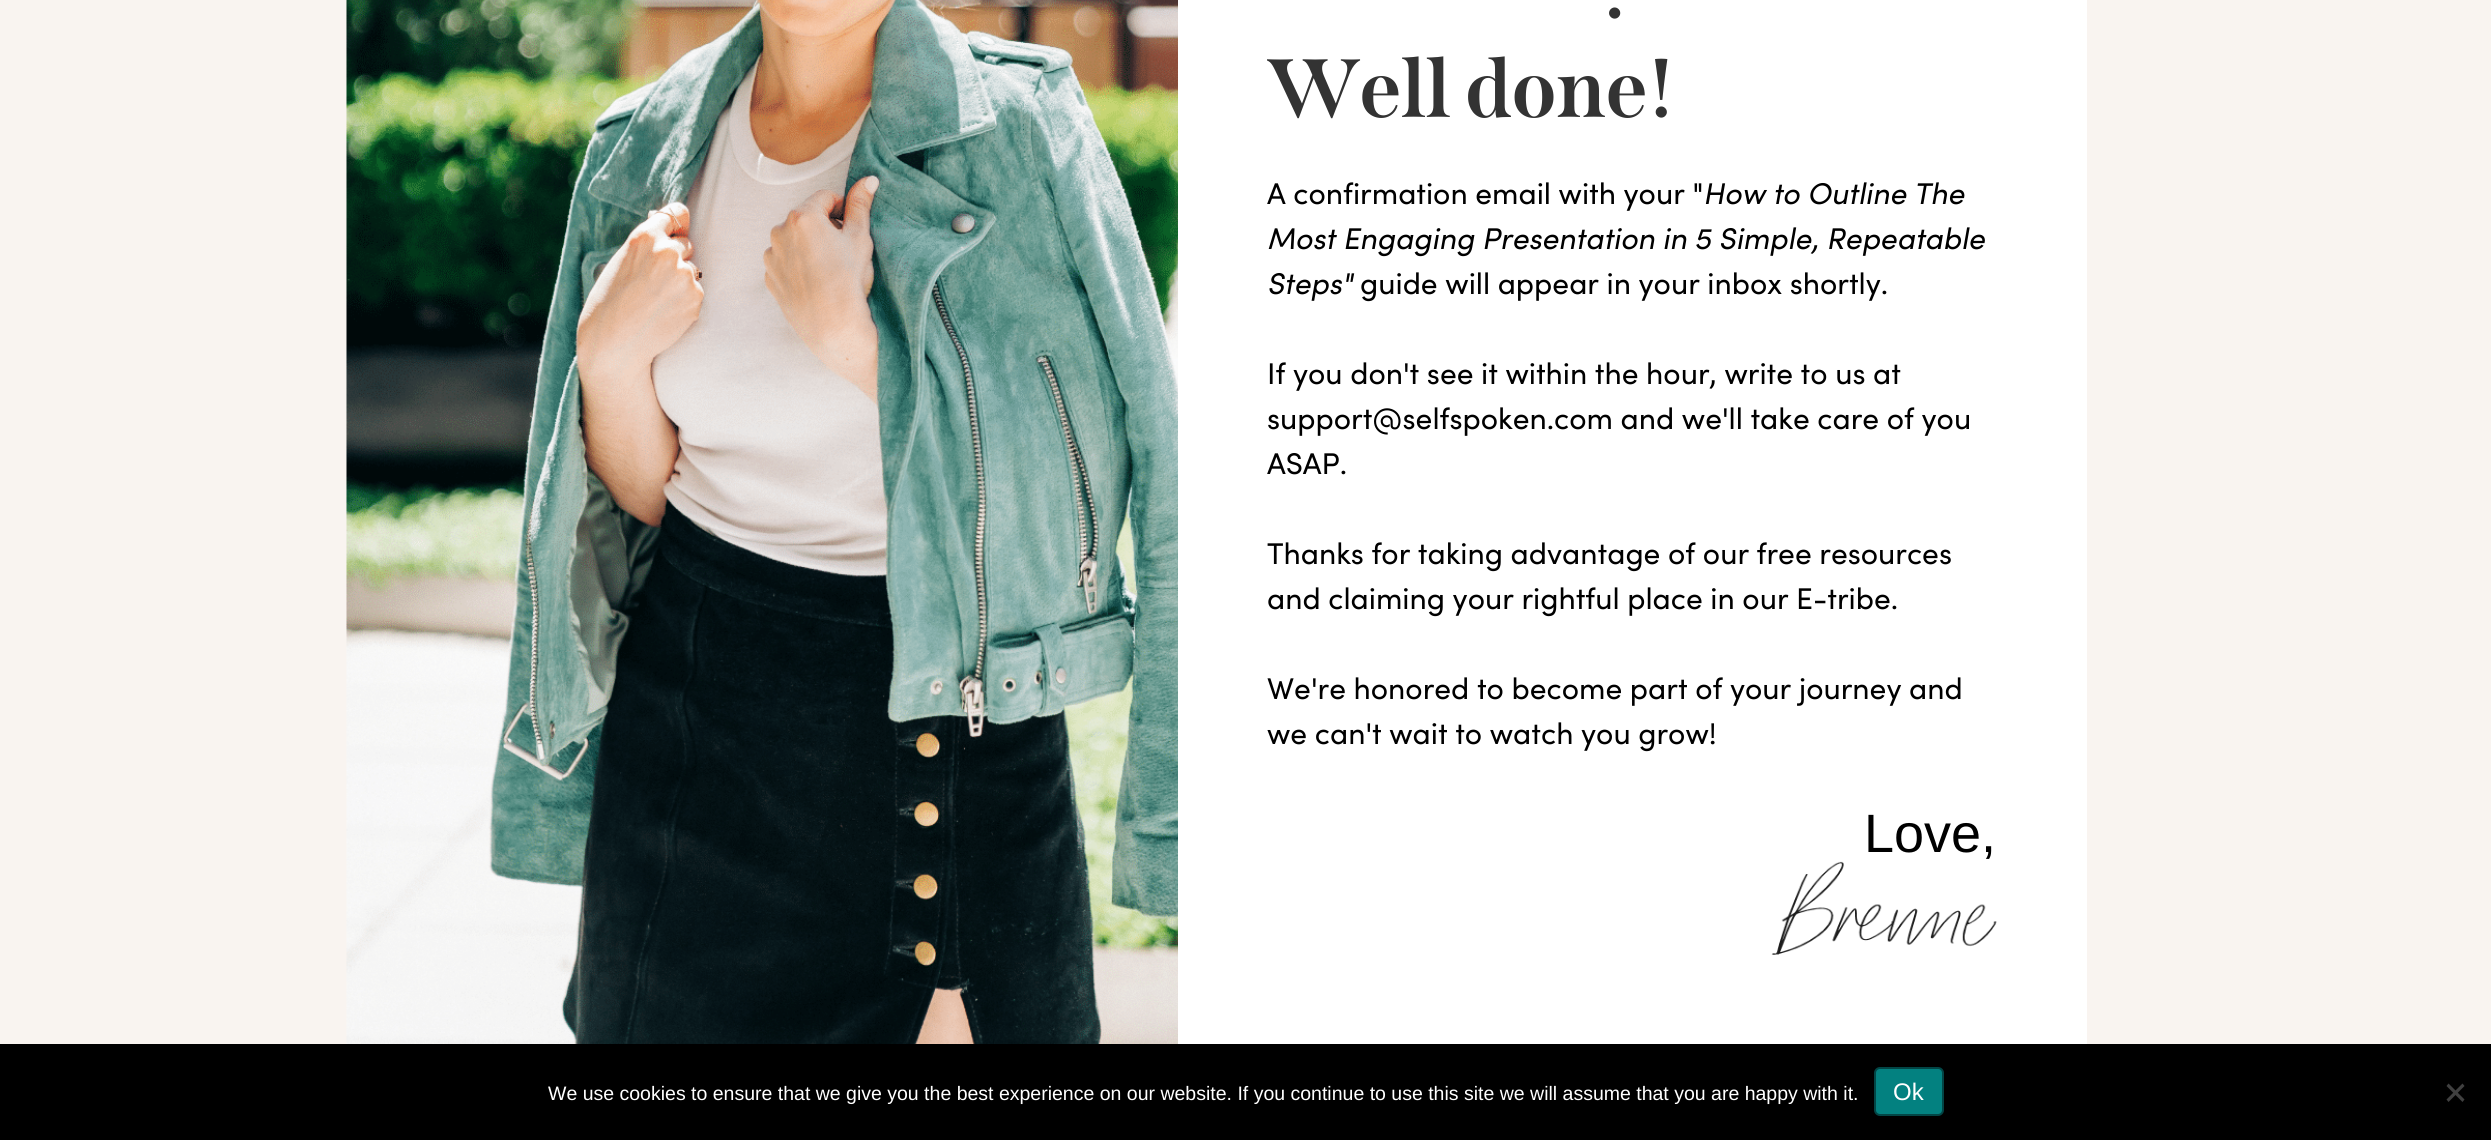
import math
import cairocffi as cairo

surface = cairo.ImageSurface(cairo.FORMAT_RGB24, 2491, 1140)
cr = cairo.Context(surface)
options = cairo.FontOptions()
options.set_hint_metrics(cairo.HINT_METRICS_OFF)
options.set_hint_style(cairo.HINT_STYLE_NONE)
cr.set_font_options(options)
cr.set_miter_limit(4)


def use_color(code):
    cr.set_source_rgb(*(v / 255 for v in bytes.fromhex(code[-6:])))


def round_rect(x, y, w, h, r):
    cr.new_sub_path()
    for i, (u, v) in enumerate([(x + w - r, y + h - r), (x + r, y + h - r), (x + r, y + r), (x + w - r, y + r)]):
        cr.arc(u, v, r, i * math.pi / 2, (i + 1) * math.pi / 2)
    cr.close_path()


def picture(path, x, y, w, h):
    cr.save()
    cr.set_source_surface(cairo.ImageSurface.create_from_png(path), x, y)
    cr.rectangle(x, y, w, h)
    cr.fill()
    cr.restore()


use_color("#f9f4f0")
cr.paint()
picture("img1.png", 346, 0, 832, 1044)
use_color("#ffffff")
cr.rectangle(1178, 0, 909, 1044)
cr.fill()
cr.select_font_face("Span", cairo.FONT_SLANT_NORMAL, cairo.FONT_WEIGHT_BOLD)
cr.set_font_size(82.5)
use_color("#333333")
cr.move_to(1604, 18)
cr.show_text(".")
cr.move_to(1267, 117)
cr.show_text("Well done!")
cr.select_font_face("Sofia")
cr.set_font_size(30)
use_color("#000000")
cr.move_to(1267, 204)
cr.show_text("A confirmation email with your \"")
cr.select_font_face("Sofia", cairo.FONT_SLANT_ITALIC)
cr.move_to(1703, 204)
cr.show_text("How to Outline The")
cr.move_to(1267, 249)
cr.show_text("Most Engaging Presentation in 5 Simple, Repeatable")
cr.move_to(1267, 294)
cr.show_text("Steps\"")
cr.select_font_face("Sofia")
cr.move_to(1360, 294)
cr.show_text("guide will appear in your inbox shortly.")
cr.move_to(1267, 384)
cr.show_text("If you don't see it within the hour, write to us at")
cr.move_to(1267, 429)
cr.show_text("support@selfspoken.com and we'll take care of you")
cr.move_to(1267, 474)
cr.show_text("ASAP.")
cr.move_to(1267, 564)
cr.show_text("Thanks for taking advantage of our free resources")
cr.move_to(1267, 609)
cr.show_text("and claiming your rightful place in our E-tribe.")
cr.move_to(1267, 699)
cr.show_text("We're honored to become part of your journey and")
cr.move_to(1267, 744)
cr.show_text("we can't wait to watch you grow!")
cr.select_font_face("Liberation Sans")
cr.set_font_size(54)
cr.move_to(1864, 852)
cr.show_text("Love,")
picture("img2.png", 1771, 861, 226, 94)
cr.rectangle(0, 1044, 2491, 96)
cr.fill()
cr.set_font_size(19.5)
use_color("#ffffff")
cr.move_to(548, 1100)
cr.show_text("We use cookies to ensure that we give you the best experience on our website. If you continue to use this site we will assume that you are happy with it.")
use_color("#038180")
round_rect(1875, 1068, 68, 47, 5)
cr.fill_preserve()
use_color("#024545")
cr.stroke()
cr.set_font_size(24)
use_color("#ffffff")
cr.move_to(1893, 1100)
cr.show_text("Ok")
use_color("#404040")
cr.new_path()
cr.move_to(2462.5, 1083.5)
cr.line_to(2464.5, 1086)
cr.line_to(2448.5, 1102)
cr.line_to(2446.5, 1099.5)
cr.close_path()
cr.fill()
cr.new_path()
cr.move_to(2446.5, 1086)
cr.line_to(2448.5, 1083.5)
cr.line_to(2464.5, 1099.5)
cr.line_to(2462.5, 1102)
cr.close_path()
cr.fill()
surface.write_to_png("result.png")
